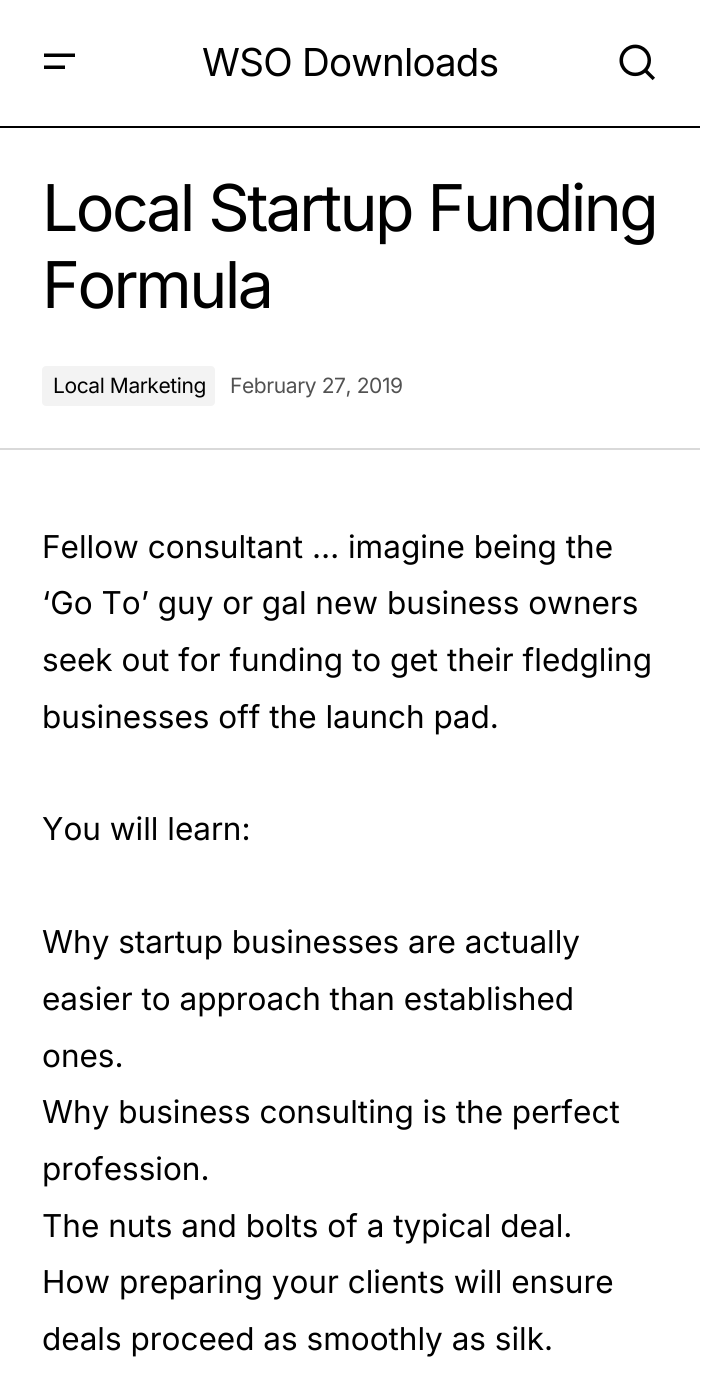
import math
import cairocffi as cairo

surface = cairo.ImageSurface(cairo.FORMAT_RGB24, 726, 1383)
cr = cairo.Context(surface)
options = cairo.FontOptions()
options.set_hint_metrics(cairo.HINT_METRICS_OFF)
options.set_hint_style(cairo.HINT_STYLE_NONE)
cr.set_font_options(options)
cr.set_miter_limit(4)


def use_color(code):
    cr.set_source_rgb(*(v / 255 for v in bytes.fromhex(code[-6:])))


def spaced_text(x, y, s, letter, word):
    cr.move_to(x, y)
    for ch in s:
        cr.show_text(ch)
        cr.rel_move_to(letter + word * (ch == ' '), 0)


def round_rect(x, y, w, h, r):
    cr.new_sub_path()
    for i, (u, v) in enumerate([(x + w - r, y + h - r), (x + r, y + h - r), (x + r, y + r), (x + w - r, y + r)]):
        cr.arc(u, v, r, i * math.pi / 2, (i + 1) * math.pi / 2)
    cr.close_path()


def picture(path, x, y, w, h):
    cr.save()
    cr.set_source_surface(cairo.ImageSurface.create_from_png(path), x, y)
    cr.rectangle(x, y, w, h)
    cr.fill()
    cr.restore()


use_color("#ffffff")
cr.paint()
use_color("#000000")
cr.new_path()
cr.move_to(44, 53.5)
cr.line_to(75, 53.5)
cr.line_to(75, 57)
cr.line_to(44, 57)
cr.close_path()
cr.move_to(44, 65.5)
cr.line_to(65, 65.5)
cr.line_to(65, 69)
cr.line_to(44, 69)
cr.close_path()
cr.fill()
cr.select_font_face("Inter")
cr.set_font_size(38.5)
spaced_text(202, 76, "WSO Downloads", -0.75, 0)
picture("img1.png", 619, 44, 36, 37)
cr.rectangle(0, 126, 700, 2)
cr.fill()
use_color("#d9d9d9")
cr.rectangle(0, 448, 700, 2)
cr.fill()
cr.set_font_size(64.5)
use_color("#000000")
spaced_text(42, 231, "Local Startup Funding", -2.6, 0)
spaced_text(42, 308, "Formula", -2.6, 0)
use_color("#f3f3f3")
round_rect(42, 366, 173, 40, 4)
cr.fill()
cr.set_font_size(21)
use_color("#000000")
spaced_text(53, 393, "Local Marketing", -0.4, 0)
use_color("#525252")
spaced_text(230, 393, "February 27, 2019", -0.4, 0)
cr.set_font_size(31.5)
use_color("#000000")
cr.move_to(42, 558)
cr.show_text("Fellow consultant … imagine being the")
cr.move_to(42, 614)
cr.show_text("‘Go To’ guy or gal new business owners")
cr.move_to(42, 671)
cr.show_text("seek out for funding to get their fledgling")
cr.move_to(42, 728)
cr.show_text("businesses off the launch pad.")
cr.move_to(42, 840)
cr.show_text("You will learn:")
cr.move_to(42, 953)
cr.show_text("Why startup businesses are actually")
cr.move_to(42, 1010)
cr.show_text("easier to approach than established")
cr.move_to(42, 1067)
cr.show_text("ones.")
cr.move_to(42, 1123)
cr.show_text("Why business consulting is the perfect")
cr.move_to(42, 1180)
cr.show_text("profession.")
cr.move_to(42, 1237)
cr.show_text("The nuts and bolts of a typical deal.")
cr.move_to(42, 1293)
cr.show_text("How preparing your clients will ensure")
cr.move_to(42, 1350)
cr.show_text("deals proceed as smoothly as silk.")
surface.write_to_png("result.png")
